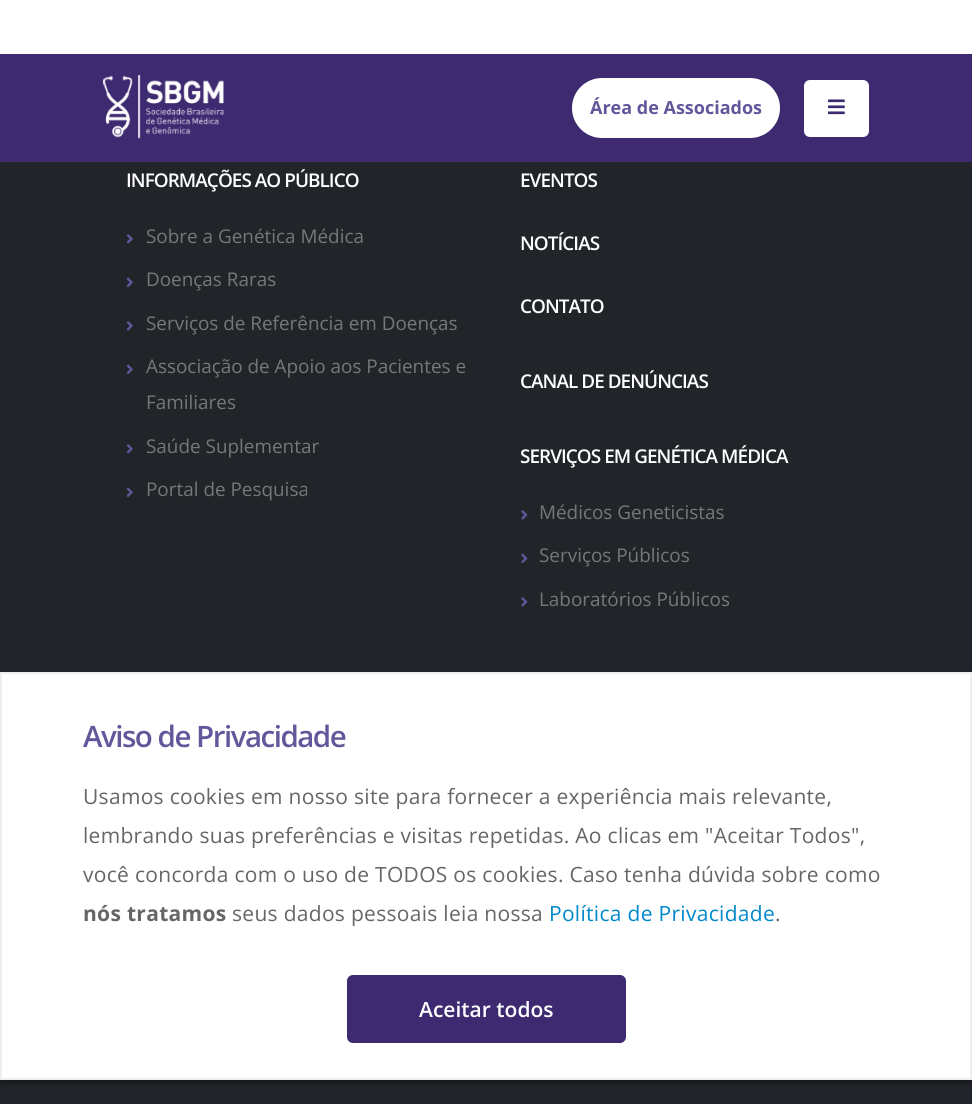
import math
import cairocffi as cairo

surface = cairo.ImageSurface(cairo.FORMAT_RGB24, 972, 1104)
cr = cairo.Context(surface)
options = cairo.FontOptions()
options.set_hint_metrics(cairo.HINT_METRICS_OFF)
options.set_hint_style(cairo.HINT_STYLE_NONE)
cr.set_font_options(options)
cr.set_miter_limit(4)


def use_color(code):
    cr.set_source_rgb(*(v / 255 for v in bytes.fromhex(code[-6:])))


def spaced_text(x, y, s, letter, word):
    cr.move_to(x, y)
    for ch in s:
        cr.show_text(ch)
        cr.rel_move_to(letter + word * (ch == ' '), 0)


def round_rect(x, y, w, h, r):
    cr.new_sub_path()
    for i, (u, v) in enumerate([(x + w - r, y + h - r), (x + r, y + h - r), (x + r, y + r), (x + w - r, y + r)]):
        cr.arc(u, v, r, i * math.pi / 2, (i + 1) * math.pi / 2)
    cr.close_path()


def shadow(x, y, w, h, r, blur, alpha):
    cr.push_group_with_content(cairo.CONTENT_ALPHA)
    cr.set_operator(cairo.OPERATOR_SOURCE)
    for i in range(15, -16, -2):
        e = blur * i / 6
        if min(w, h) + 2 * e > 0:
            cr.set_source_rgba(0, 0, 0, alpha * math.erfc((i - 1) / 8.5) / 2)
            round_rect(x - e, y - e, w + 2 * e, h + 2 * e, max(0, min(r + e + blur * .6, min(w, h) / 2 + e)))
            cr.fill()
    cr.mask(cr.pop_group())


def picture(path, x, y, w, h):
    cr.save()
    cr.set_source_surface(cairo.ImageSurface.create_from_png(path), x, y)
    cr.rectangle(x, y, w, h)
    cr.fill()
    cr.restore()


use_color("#212529")
cr.paint()
use_color("#ffffff")
cr.rectangle(0, 0, 972, 54)
cr.fill()
use_color("#3e2a71")
cr.rectangle(0, 54, 972, 108)
cr.fill()
picture("img1.png", 103, 74, 121, 65)
use_color("#ffffff")
round_rect(572, 78, 208, 60, 30)
cr.fill()
cr.select_font_face("Open Sans", cairo.FONT_SLANT_NORMAL, cairo.FONT_WEIGHT_BOLD)
cr.set_font_size(18)
use_color("#60589b")
cr.move_to(590, 114)
cr.show_text("Área de Associados")
use_color("#ffffff")
round_rect(804, 80, 65, 57, 6)
cr.fill()
picture("img2.png", 828, 99, 17, 16)
cr.select_font_face("Open Sans SemiBold")
cr.set_font_size(18.9)
spaced_text(126, 187, "INFORMAÇÕES AO PÚBLICO", -0.95, 0)
picture("img3.png", 126, 234, 7, 10)
cr.select_font_face("Open Sans")
use_color("#777777")
cr.move_to(146, 243)
cr.show_text("Sobre a Genética Médica")
picture("img4.png", 126, 277, 7, 10)
cr.move_to(146, 286)
cr.show_text("Doenças Raras")
picture("img3.png", 126, 321, 7, 10)
cr.move_to(146, 330)
cr.show_text("Serviços de Referência em Doenças")
picture("img4.png", 126, 364, 7, 10)
cr.move_to(146, 373)
cr.show_text("Associação de Apoio aos Pacientes e")
cr.move_to(146, 409)
cr.show_text("Familiares")
picture("img3.png", 126, 444, 7, 10)
cr.move_to(146, 453)
cr.show_text("Saúde Suplementar")
picture("img4.png", 126, 487, 7, 10)
cr.move_to(146, 496)
cr.show_text("Portal de Pesquisa")
cr.select_font_face("Open Sans SemiBold")
use_color("#ffffff")
spaced_text(520, 187, "EVENTOS", -0.95, 0)
spaced_text(520, 250, "NOTÍCIAS", -0.95, 0)
spaced_text(520, 313, "CONTATO", -0.95, 0)
spaced_text(520, 388, "CANAL DE DENÚNCIAS", -0.95, 0)
spaced_text(520, 463, "SERVIÇOS EM GENÉTICA MÉDICA", -0.95, 0)
picture("img5.png", 521, 510, 7, 10)
cr.select_font_face("Open Sans")
use_color("#777777")
cr.move_to(539, 519)
cr.show_text("Médicos Geneticistas")
picture("img6.png", 521, 553, 7, 10)
cr.move_to(539, 562)
cr.show_text("Serviços Públicos")
picture("img5.png", 521, 597, 7, 10)
cr.move_to(539, 606)
cr.show_text("Laboratórios Públicos")
use_color("#000000")
shadow(0, 675, 972, 408, 0, 3, 0.4)
use_color("#ffffff")
cr.rectangle(1, 673, 970, 406)
cr.fill_preserve()
use_color("#eeeeee")
cr.stroke()
cr.select_font_face("Open Sans SemiBold")
cr.set_font_size(29.5)
use_color("#60589b")
spaced_text(83, 747, "Aviso de Privacidade", -1.5, 0)
cr.select_font_face("Open Sans")
cr.set_font_size(21)
use_color("#666666")
spaced_text(83, 804, "Usamos cookies em nosso site para fornecer a experiência mais relevante,", 0.3, 0)
spaced_text(83, 843, "lembrando suas preferências e visitas repetidas. Ao clicas em \"Aceitar Todos\",", 0.3, 0)
spaced_text(83, 882, "você concorda com o uso de TODOS os cookies. Caso tenha dúvida sobre como", 0.3, 0)
cr.select_font_face("Open Sans", cairo.FONT_SLANT_NORMAL, cairo.FONT_WEIGHT_BOLD)
spaced_text(83, 921, "nós tratamos", 0.3, 0)
cr.select_font_face("Open Sans")
spaced_text(232, 921, "seus dados pessoais leia nossa", 0.3, 0)
use_color("#0088cc")
spaced_text(549, 921, "Política de Privacidade", 0.3, 0)
use_color("#666666")
spaced_text(775, 921, ".", 0.3, 0)
use_color("#3e2a71")
round_rect(347, 975, 279, 68, 6)
cr.fill()
cr.select_font_face("Open Sans SemiBold")
use_color("#ffffff")
cr.move_to(419, 1017)
cr.show_text("Aceitar todos")
surface.write_to_png("result.png")
